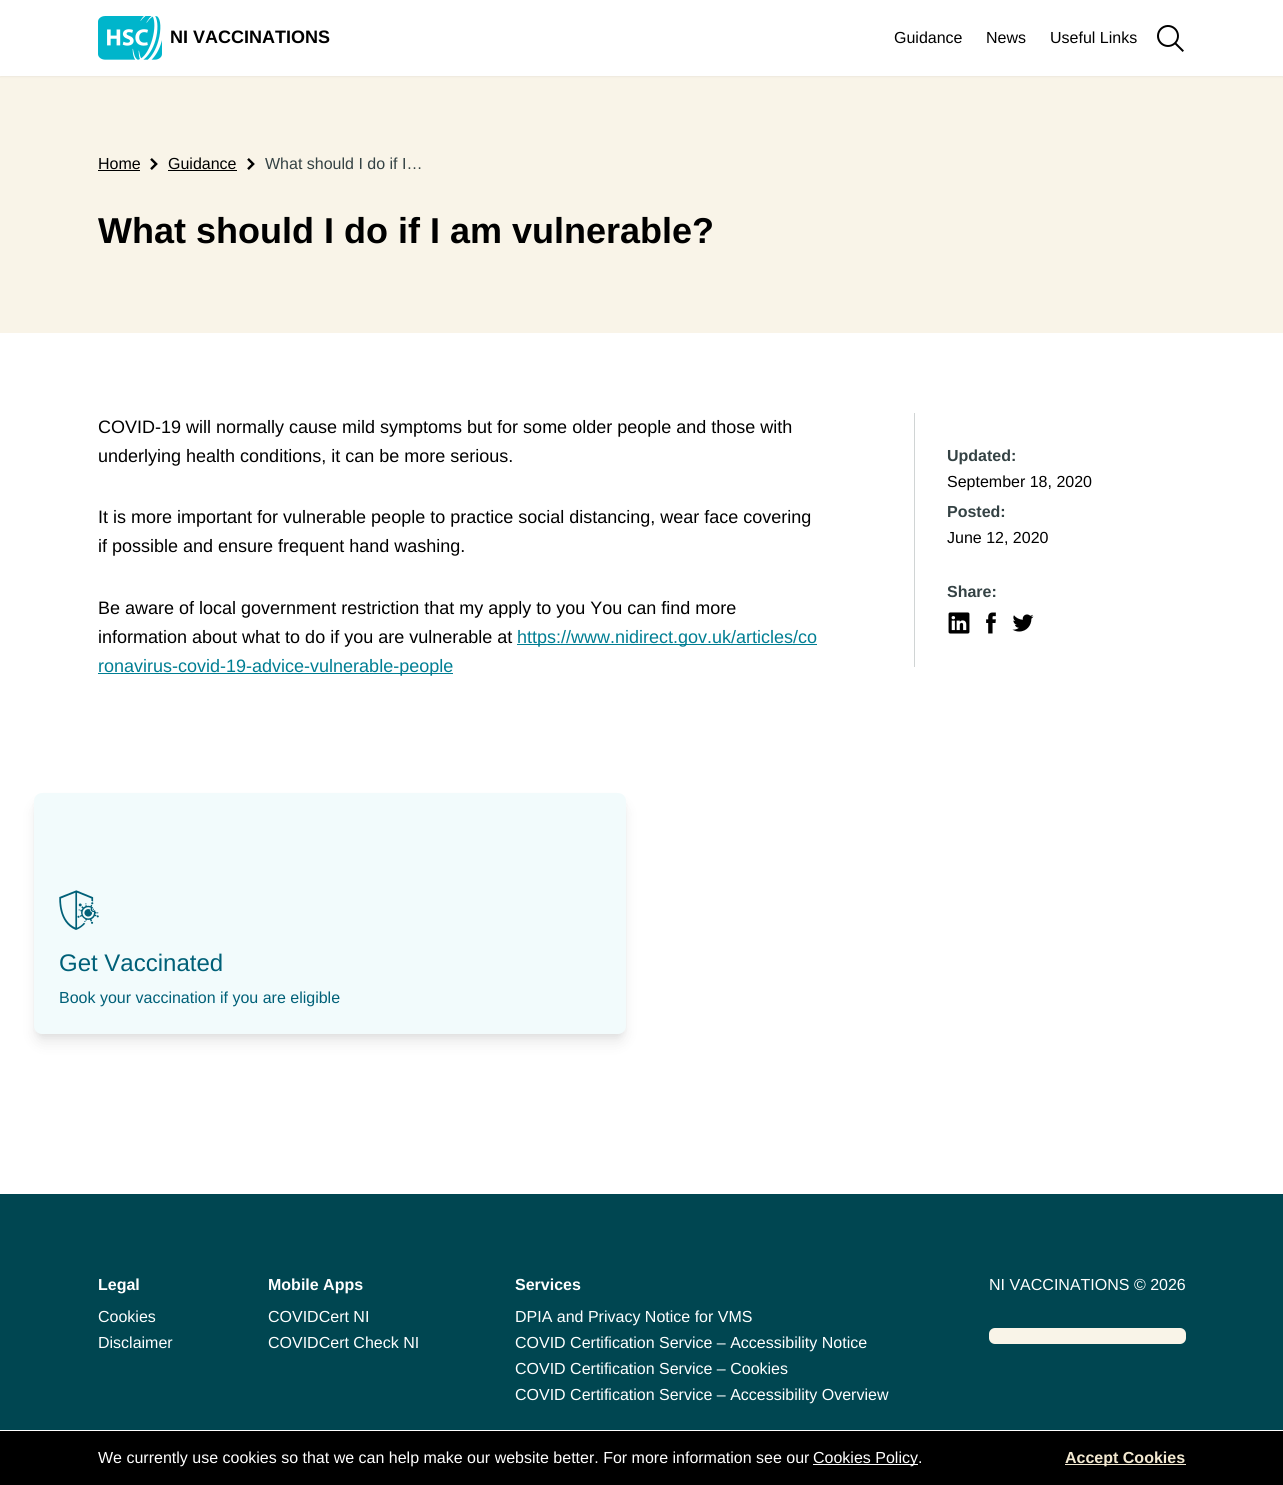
import math
import cairocffi as cairo

surface = cairo.ImageSurface(cairo.FORMAT_RGB24, 1283, 1485)
cr = cairo.Context(surface)
options = cairo.FontOptions()
options.set_hint_metrics(cairo.HINT_METRICS_OFF)
options.set_hint_style(cairo.HINT_STYLE_NONE)
cr.set_font_options(options)
cr.set_miter_limit(4)


def use_color(code):
    cr.set_source_rgb(*(v / 255 for v in bytes.fromhex(code[-6:])))


def round_rect(x, y, w, h, r):
    cr.new_sub_path()
    for i, (u, v) in enumerate([(x + w - r, y + h - r), (x + r, y + h - r), (x + r, y + r), (x + w - r, y + r)]):
        cr.arc(u, v, r, i * math.pi / 2, (i + 1) * math.pi / 2)
    cr.close_path()


def shadow(x, y, w, h, r, blur, alpha):
    cr.push_group_with_content(cairo.CONTENT_ALPHA)
    cr.set_operator(cairo.OPERATOR_SOURCE)
    for i in range(15, -16, -2):
        e = blur * i / 6
        if min(w, h) + 2 * e > 0:
            cr.set_source_rgba(0, 0, 0, alpha * math.erfc((i - 1) / 8.5) / 2)
            round_rect(x - e, y - e, w + 2 * e, h + 2 * e, max(0, min(r + e + blur * .6, min(w, h) / 2 + e)))
            cr.fill()
    cr.mask(cr.pop_group())


def picture(path, x, y, w, h):
    cr.save()
    cr.set_source_surface(cairo.ImageSurface.create_from_png(path), x, y)
    cr.rectangle(x, y, w, h)
    cr.fill()
    cr.restore()


use_color("#ffffff")
cr.paint()
use_color("#f9f4e8")
cr.rectangle(0, 76, 1283, 257)
cr.fill()
use_color("#000000")
shadow(0, 1, 1283, 76, 0, 1, 0.05)
use_color("#ffffff")
cr.rectangle(0, 0, 1283, 76)
cr.fill()
picture("img1.png", 98, 16, 64, 44)
cr.select_font_face("Liberation Sans", cairo.FONT_SLANT_NORMAL, cairo.FONT_WEIGHT_BOLD)
cr.set_font_size(18)
use_color("#000000")
cr.move_to(170, 43)
cr.show_text("NI VACCINATIONS")
cr.select_font_face("Liberation Sans")
cr.set_font_size(16)
cr.move_to(894, 43)
cr.show_text("Guidance")
cr.move_to(986, 43)
cr.show_text("News")
cr.move_to(1050, 43)
cr.show_text("Useful Links")
picture("img2.png", 1157, 25, 27, 27)
cr.move_to(98, 169)
cr.show_text("Home")
cr.rectangle(98, 170, 42, 1)
cr.fill()
picture("img3.png", 150, 158, 8, 12)
cr.move_to(168, 169)
cr.show_text("Guidance")
cr.rectangle(168, 170, 69, 1)
cr.fill()
picture("img3.png", 247, 158, 8, 12)
use_color("#344244")
cr.move_to(265, 169)
cr.show_text("What should I do if I…")
cr.select_font_face("Liberation Sans", cairo.FONT_SLANT_NORMAL, cairo.FONT_WEIGHT_BOLD)
cr.set_font_size(36)
use_color("#000000")
cr.move_to(98, 243)
cr.show_text("What should I do if I am vulnerable?")
cr.select_font_face("Liberation Sans")
cr.set_font_size(18)
cr.move_to(98, 433)
cr.show_text("COVID-19 will normally cause mild symptoms but for some older people and those with")
cr.move_to(98, 462)
cr.show_text("underlying health conditions, it can be more serious.")
cr.move_to(98, 523)
cr.show_text("It is more important for vulnerable people to practice social distancing, wear face covering")
cr.move_to(98, 552)
cr.show_text("if possible and ensure frequent hand washing.")
cr.move_to(98, 614)
cr.show_text("Be aware of local government restriction that my apply to you You can find more")
cr.move_to(98, 643)
cr.show_text("information about what to do if you are vulnerable at")
use_color("#007e93")
cr.rectangle(517, 644, 300, 1)
cr.fill()
cr.move_to(517, 643)
cr.show_text("https://www.nidirect.gov.uk/articles/co")
cr.rectangle(98, 673, 355, 1)
cr.fill()
cr.move_to(98, 672)
cr.show_text("ronavirus-covid-19-advice-vulnerable-people")
use_color("#d0d4d4")
cr.rectangle(914, 413, 1, 254)
cr.fill()
cr.select_font_face("Liberation Sans", cairo.FONT_SLANT_NORMAL, cairo.FONT_WEIGHT_BOLD)
cr.set_font_size(16)
use_color("#344244")
cr.move_to(947, 461)
cr.show_text("Updated:")
cr.select_font_face("Liberation Sans")
use_color("#000000")
cr.move_to(947, 487)
cr.show_text("September 18, 2020")
cr.select_font_face("Liberation Sans", cairo.FONT_SLANT_NORMAL, cairo.FONT_WEIGHT_BOLD)
use_color("#344244")
cr.move_to(947, 517)
cr.show_text("Posted:")
cr.select_font_face("Liberation Sans")
use_color("#000000")
cr.move_to(947, 543)
cr.show_text("June 12, 2020")
cr.select_font_face("Liberation Sans", cairo.FONT_SLANT_NORMAL, cairo.FONT_WEIGHT_BOLD)
use_color("#344244")
cr.move_to(947, 597)
cr.show_text("Share:")
picture("img4.png", 948, 612, 22, 22)
picture("img5.png", 986, 612, 10, 22)
picture("img6.png", 1012, 614, 22, 18)
use_color("#000000")
shadow(36, 799, 588, 237, 6, 3, 0.05)
shadow(37, 806, 586, 235, 5, 7.5, 0.1)
use_color("#f2fbfc")
round_rect(34, 793, 592, 241, 8)
cr.fill()
picture("img7.png", 59, 890, 40, 40)
cr.select_font_face("Liberation Sans")
cr.set_font_size(24)
use_color("#006078")
cr.move_to(59, 971)
cr.show_text("Get Vaccinated")
cr.set_font_size(16)
cr.move_to(59, 1003)
cr.show_text("Book your vaccination if you are eligible")
use_color("#004651")
cr.rectangle(0, 1194, 1283, 236)
cr.fill()
cr.select_font_face("Liberation Sans", cairo.FONT_SLANT_NORMAL, cairo.FONT_WEIGHT_BOLD)
use_color("#ffffff")
cr.move_to(98, 1290)
cr.show_text("Legal")
cr.select_font_face("Liberation Sans")
cr.move_to(98, 1322)
cr.show_text("Cookies")
cr.move_to(98, 1348)
cr.show_text("Disclaimer")
cr.select_font_face("Liberation Sans", cairo.FONT_SLANT_NORMAL, cairo.FONT_WEIGHT_BOLD)
cr.move_to(268, 1290)
cr.show_text("Mobile Apps")
cr.select_font_face("Liberation Sans")
cr.move_to(268, 1322)
cr.show_text("COVIDCert NI")
cr.move_to(268, 1348)
cr.show_text("COVIDCert Check NI")
cr.select_font_face("Liberation Sans", cairo.FONT_SLANT_NORMAL, cairo.FONT_WEIGHT_BOLD)
cr.move_to(515, 1290)
cr.show_text("Services")
cr.select_font_face("Liberation Sans")
cr.move_to(515, 1322)
cr.show_text("DPIA and Privacy Notice for VMS")
cr.move_to(515, 1348)
cr.show_text("COVID Certification Service – Accessibility Notice")
cr.move_to(515, 1374)
cr.show_text("COVID Certification Service – Cookies")
cr.move_to(515, 1400)
cr.show_text("COVID Certification Service – Accessibility Overview")
cr.move_to(989, 1290)
cr.show_text("NI VACCINATIONS © 2026")
use_color("#f9f4e8")
round_rect(989, 1328, 197, 16, 6)
cr.fill()
use_color("#000000")
cr.rectangle(0, 1431, 1283, 54)
cr.fill()
use_color("#ffffff")
cr.move_to(98, 1463)
cr.show_text("We currently use cookies so that we can help make our website better. For more information see our")
cr.rectangle(813, 1464, 105, 1)
cr.fill()
cr.move_to(813, 1463)
cr.show_text("Cookies Policy.")
use_color("#f3e9d1")
cr.rectangle(1065, 1464, 121, 1)
cr.fill()
cr.select_font_face("Liberation Sans", cairo.FONT_SLANT_NORMAL, cairo.FONT_WEIGHT_BOLD)
cr.move_to(1065, 1463)
cr.show_text("Accept Cookies")
surface.write_to_png("result.png")
